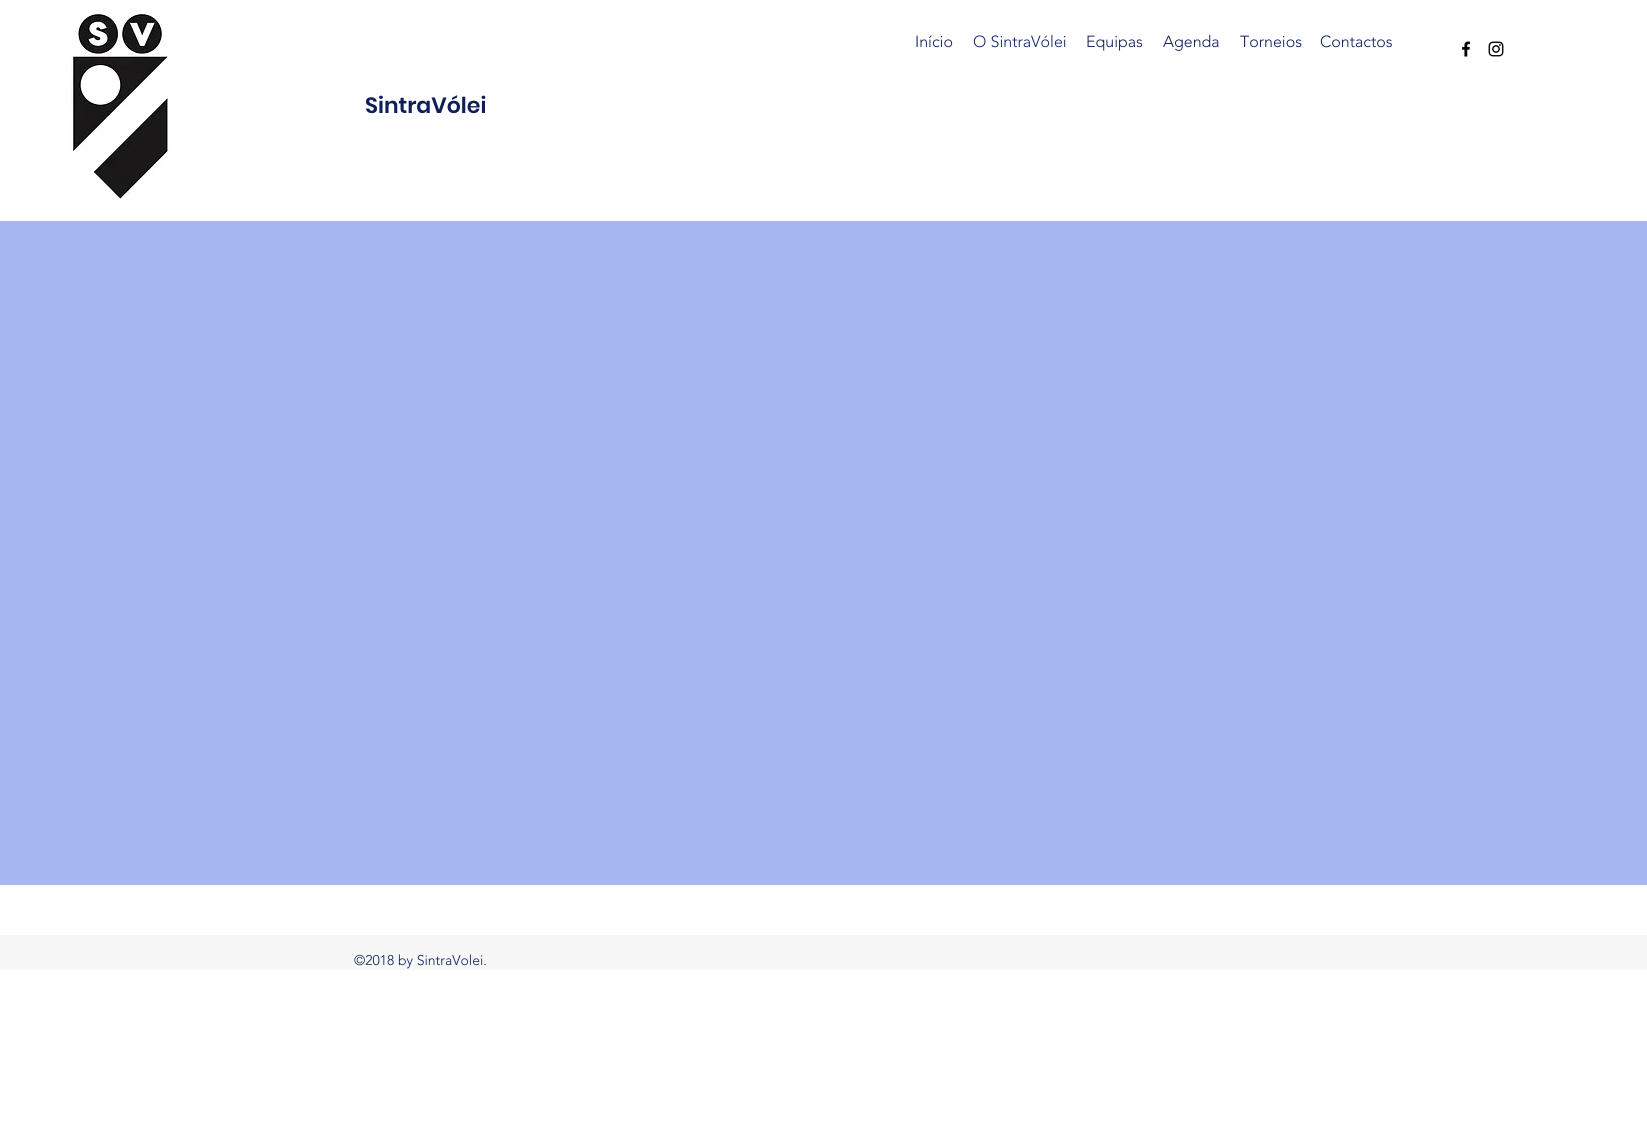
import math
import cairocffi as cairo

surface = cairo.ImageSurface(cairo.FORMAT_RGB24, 1647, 1123)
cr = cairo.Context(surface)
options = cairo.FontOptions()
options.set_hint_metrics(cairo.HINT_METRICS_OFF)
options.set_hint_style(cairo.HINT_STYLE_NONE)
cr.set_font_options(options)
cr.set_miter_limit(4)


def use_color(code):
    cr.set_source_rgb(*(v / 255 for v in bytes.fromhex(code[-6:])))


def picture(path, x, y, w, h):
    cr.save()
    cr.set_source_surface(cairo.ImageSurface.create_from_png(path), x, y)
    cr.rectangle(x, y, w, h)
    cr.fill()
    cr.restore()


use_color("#ffffff")
cr.paint()
cr.select_font_face("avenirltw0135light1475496 Light")
cr.set_font_size(16)
use_color("#0e1f58")
cr.move_to(915, 47)
cr.show_text("Início")
use_color("#102467")
cr.move_to(973, 47)
cr.show_text("O SintraVólei")
use_color("#0e1f58")
cr.move_to(1086, 47)
cr.show_text("Equipas")
cr.move_to(1163, 47)
cr.show_text("Agenda")
cr.move_to(1240, 47)
cr.show_text("Torneios")
cr.move_to(1320, 47)
cr.show_text("Contactos")
picture("img1.png", 1462, 41, 9, 16)
picture("img2.png", 1488, 41, 16, 16)
picture("img3.png", 71, 14, 100, 186)
cr.select_font_face("Poppins SemiBold")
cr.set_font_size(22)
cr.move_to(365, 113)
cr.show_text("SintraVólei")
use_color("#a7b8f1")
cr.rectangle(0, 221, 1647, 664)
cr.fill()
use_color("#f7f7f7")
cr.rectangle(0, 935, 1647, 35)
cr.fill()
cr.select_font_face("avenirltw0135light1475496 Light")
cr.set_font_size(14)
use_color("#0e1f58")
cr.move_to(354, 965)
cr.show_text("©2018 by SintraVolei.")
surface.write_to_png("result.png")
